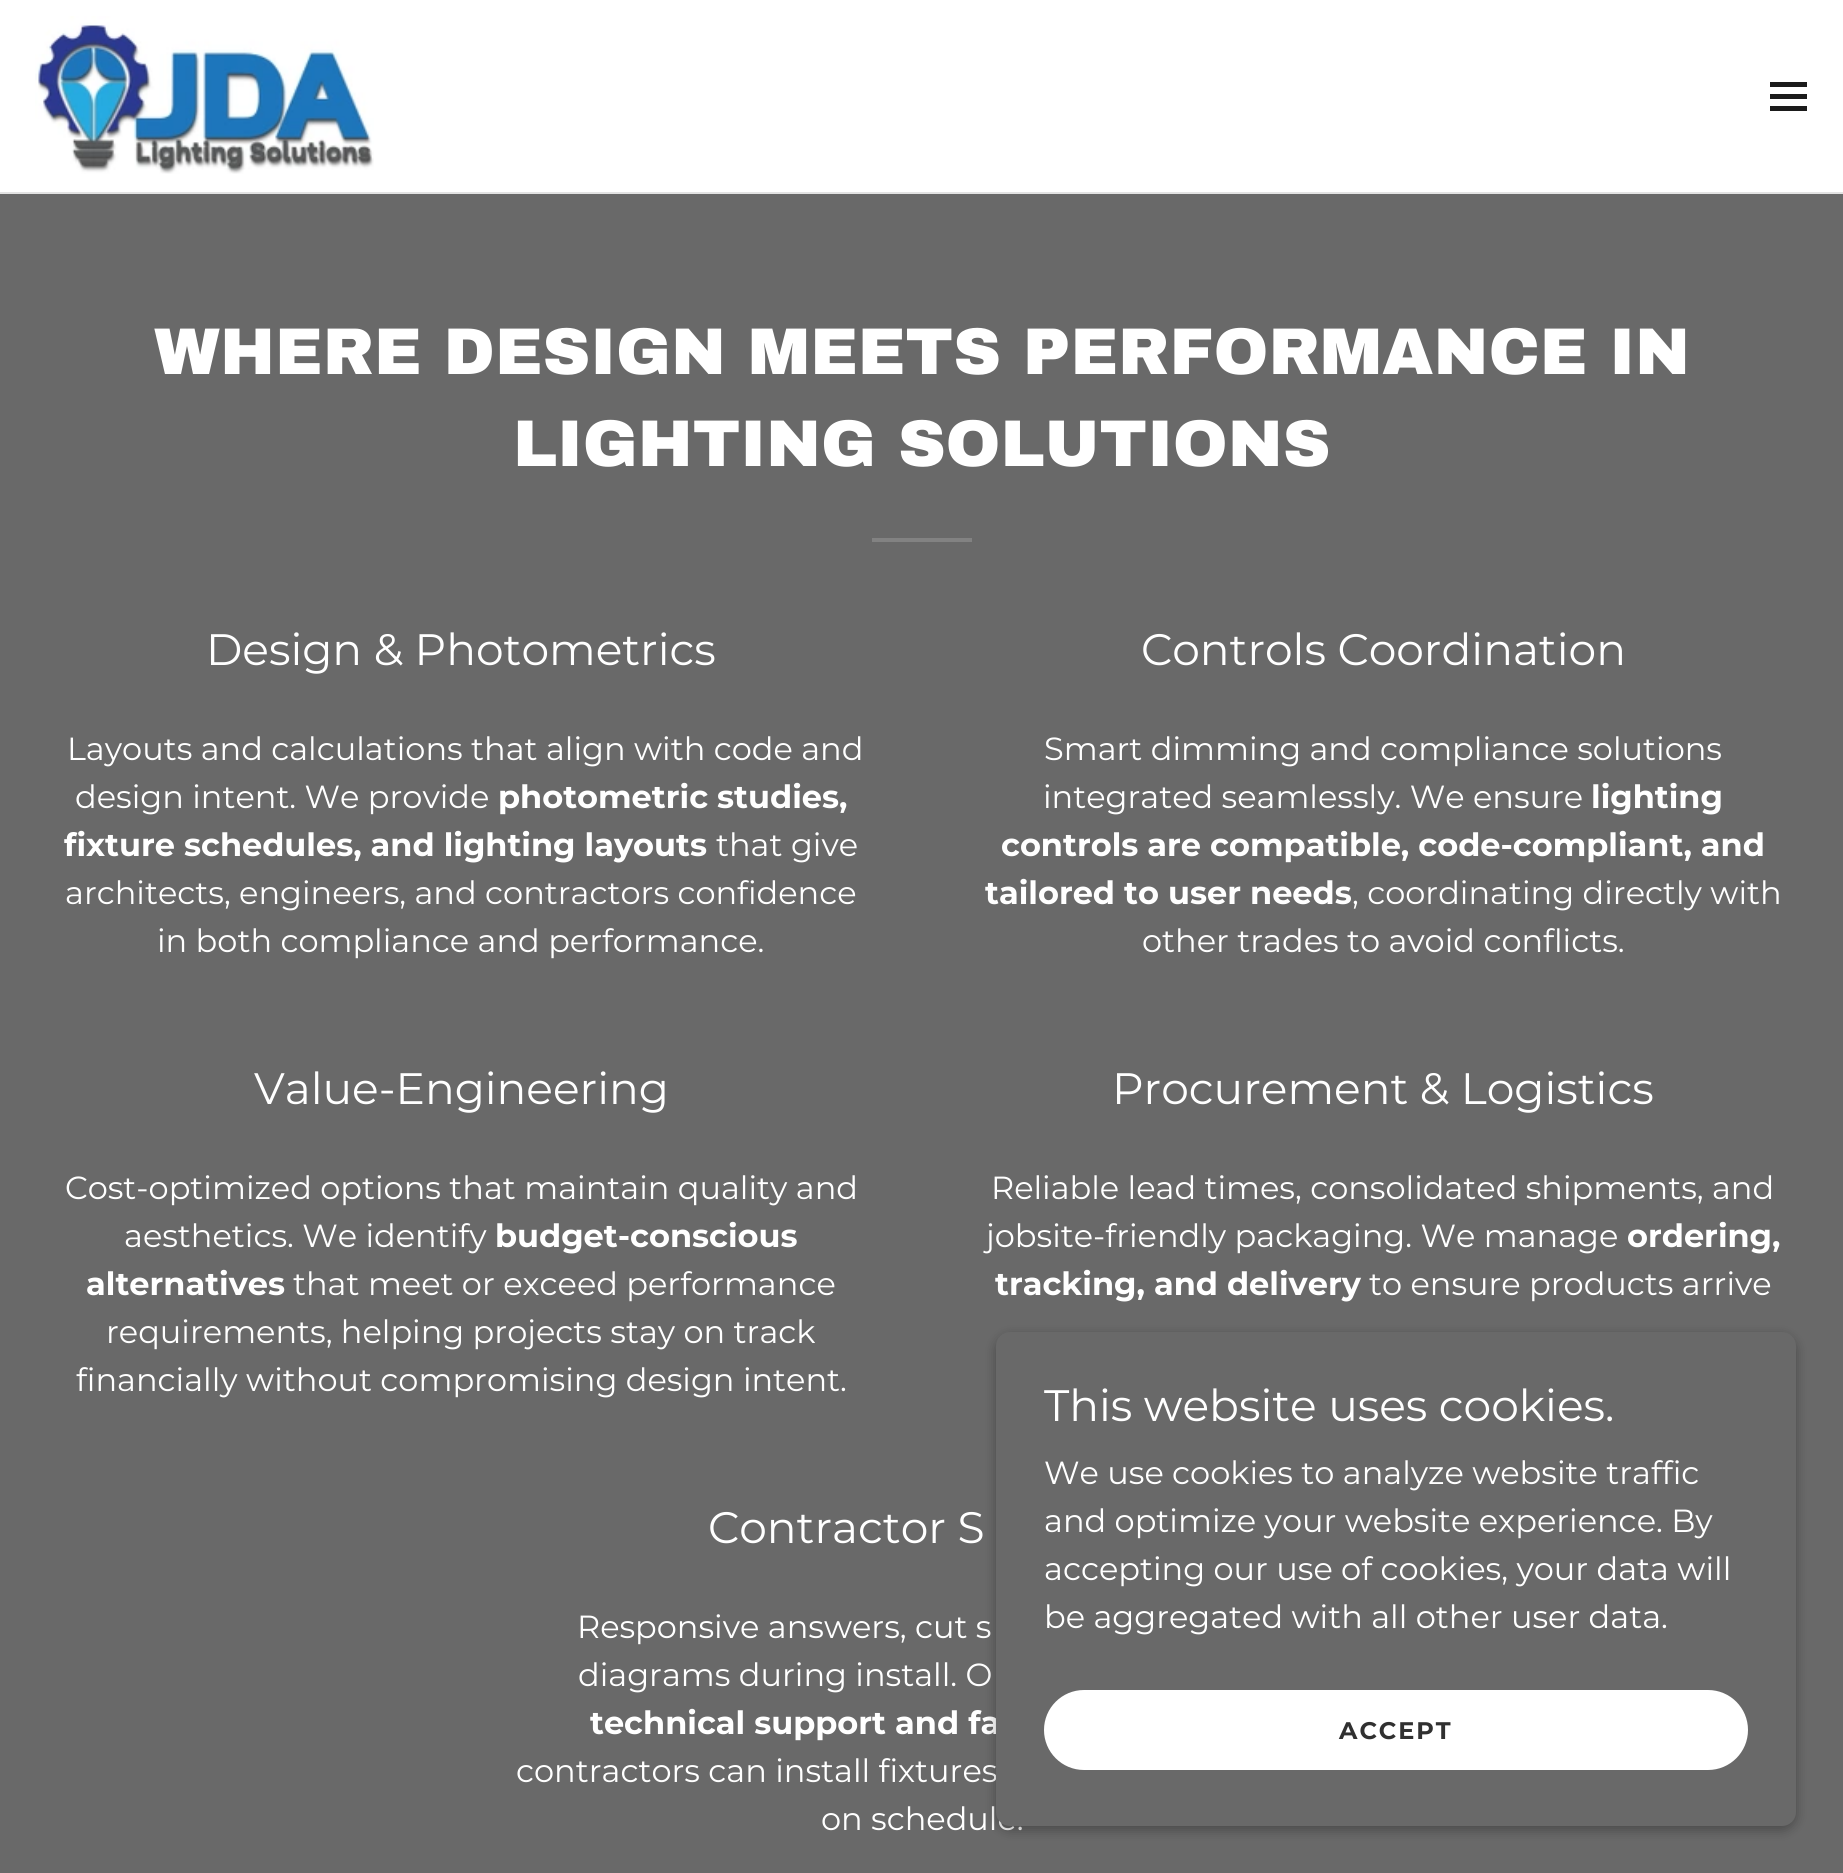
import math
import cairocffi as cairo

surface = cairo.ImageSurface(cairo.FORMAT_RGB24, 1843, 1873)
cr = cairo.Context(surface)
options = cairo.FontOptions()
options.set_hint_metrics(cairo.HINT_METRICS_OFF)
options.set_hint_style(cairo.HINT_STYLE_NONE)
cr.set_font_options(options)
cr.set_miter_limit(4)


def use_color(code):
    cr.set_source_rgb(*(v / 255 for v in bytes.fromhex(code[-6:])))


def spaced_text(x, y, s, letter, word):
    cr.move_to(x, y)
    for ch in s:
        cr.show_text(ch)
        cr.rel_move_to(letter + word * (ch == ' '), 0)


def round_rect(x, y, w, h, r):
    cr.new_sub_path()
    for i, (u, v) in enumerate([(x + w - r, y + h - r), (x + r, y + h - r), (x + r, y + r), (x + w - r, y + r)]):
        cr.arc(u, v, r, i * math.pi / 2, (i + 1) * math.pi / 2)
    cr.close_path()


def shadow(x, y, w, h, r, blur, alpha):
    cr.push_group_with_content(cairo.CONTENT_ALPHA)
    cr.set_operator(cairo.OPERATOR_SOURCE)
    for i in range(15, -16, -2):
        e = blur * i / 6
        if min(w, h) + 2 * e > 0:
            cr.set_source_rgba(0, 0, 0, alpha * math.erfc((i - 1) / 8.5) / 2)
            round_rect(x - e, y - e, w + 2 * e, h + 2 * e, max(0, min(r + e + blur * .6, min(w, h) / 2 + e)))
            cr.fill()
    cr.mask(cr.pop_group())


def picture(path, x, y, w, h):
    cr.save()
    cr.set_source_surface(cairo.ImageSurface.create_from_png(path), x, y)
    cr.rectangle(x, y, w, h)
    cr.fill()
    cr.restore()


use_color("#ffffff")
cr.paint()
picture("img1.png", 35, 16, 339, 158)
use_color("#1b1b1b")
cr.rectangle(1770, 82, 37, 5)
cr.fill()
cr.rectangle(1770, 94, 37, 5)
cr.fill()
cr.rectangle(1770, 106, 37, 5)
cr.fill()
use_color("#e2e2e2")
cr.rectangle(0, 192, 1843, 2)
cr.fill()
use_color("#696969")
cr.rectangle(0, 194, 1843, 1679)
cr.fill()
cr.select_font_face("Archivo Black Black")
cr.set_font_size(66)
use_color("#ffffff")
cr.move_to(154, 374)
cr.show_text("WHERE DESIGN MEETS PERFORMANCE IN")
cr.move_to(513, 466)
cr.show_text("LIGHTING SOLUTIONS")
use_color("#828282")
cr.rectangle(872, 538, 100, 4)
cr.fill()
cr.select_font_face("Montserrat")
cr.set_font_size(44)
use_color("#ffffff")
cr.move_to(206, 665)
cr.show_text("Design & Photometrics")
cr.set_font_size(32)
cr.move_to(67, 760)
cr.show_text("Layouts and calculations that align with code and")
cr.move_to(75, 808)
cr.show_text("design intent. We provide")
cr.select_font_face("Montserrat", cairo.FONT_SLANT_NORMAL, cairo.FONT_WEIGHT_BOLD)
cr.move_to(498, 808)
cr.show_text("photometric studies,")
cr.move_to(64, 856)
cr.show_text("fixture schedules, and lighting layouts")
cr.select_font_face("Montserrat")
cr.move_to(716, 856)
cr.show_text("that give")
cr.move_to(65, 904)
cr.show_text("architects, engineers, and contractors confidence")
cr.move_to(157, 952)
cr.show_text("in both compliance and performance.")
cr.set_font_size(44)
cr.move_to(1141, 665)
cr.show_text("Controls Coordination")
cr.set_font_size(32)
cr.move_to(1044, 760)
cr.show_text("Smart dimming and compliance solutions")
cr.move_to(1043, 808)
cr.show_text("integrated seamlessly. We ensure")
cr.select_font_face("Montserrat", cairo.FONT_SLANT_NORMAL, cairo.FONT_WEIGHT_BOLD)
cr.move_to(1591, 808)
cr.show_text("lighting")
cr.move_to(1001, 856)
cr.show_text("controls are compatible, code-compliant, and")
cr.move_to(985, 904)
cr.show_text("tailored to user needs")
cr.select_font_face("Montserrat")
cr.move_to(1352, 904)
cr.show_text(", coordinating directly with")
cr.move_to(1142, 952)
cr.show_text("other trades to avoid conflicts.")
cr.set_font_size(44)
cr.move_to(254, 1104)
cr.show_text("Value-Engineering")
cr.set_font_size(32)
cr.move_to(65, 1199)
cr.show_text("Cost-optimized options that maintain quality and")
cr.move_to(124, 1247)
cr.show_text("aesthetics. We identify")
cr.select_font_face("Montserrat", cairo.FONT_SLANT_NORMAL, cairo.FONT_WEIGHT_BOLD)
cr.move_to(495, 1247)
cr.show_text("budget-conscious")
cr.move_to(86, 1295)
cr.show_text("alternatives")
cr.select_font_face("Montserrat")
cr.move_to(293, 1295)
cr.show_text("that meet or exceed performance")
cr.move_to(106, 1343)
cr.show_text("requirements, helping projects stay on track")
cr.move_to(76, 1391)
cr.show_text("financially without compromising design intent.")
cr.set_font_size(44)
cr.move_to(1112, 1104)
cr.show_text("Procurement & Logistics")
cr.set_font_size(32)
cr.move_to(991, 1199)
cr.show_text("Reliable lead times, consolidated shipments, and")
cr.move_to(986, 1247)
cr.show_text("jobsite-friendly packaging. We manage")
cr.select_font_face("Montserrat", cairo.FONT_SLANT_NORMAL, cairo.FONT_WEIGHT_BOLD)
cr.move_to(1627, 1247)
cr.show_text("ordering,")
cr.move_to(995, 1295)
cr.show_text("tracking, and delivery")
cr.select_font_face("Montserrat")
cr.move_to(1369, 1295)
cr.show_text("to ensure products arrive")
cr.set_font_size(44)
cr.move_to(708, 1543)
cr.show_text("Contractor S")
cr.set_font_size(32)
cr.move_to(577, 1638)
cr.show_text("Responsive answers, cut s")
cr.move_to(578, 1686)
cr.show_text("diagrams during install. O")
cr.select_font_face("Montserrat", cairo.FONT_SLANT_NORMAL, cairo.FONT_WEIGHT_BOLD)
cr.move_to(590, 1734)
cr.show_text("technical support and fa")
cr.select_font_face("Montserrat")
cr.move_to(516, 1782)
cr.show_text("contractors can install fixtures")
cr.move_to(821, 1830)
cr.show_text("on schedule.")
use_color("#000000")
shadow(996, 1336, 800, 494, 14, 6, 0.3)
use_color("#696969")
round_rect(996, 1332, 800, 494, 14)
cr.fill()
cr.set_font_size(44)
use_color("#ffffff")
cr.move_to(1044, 1421)
cr.show_text("This website uses cookies.")
cr.set_font_size(32)
cr.move_to(1044, 1484)
cr.show_text("We use cookies to analyze website traffic")
cr.move_to(1044, 1532)
cr.show_text("and optimize your website experience. By")
cr.move_to(1044, 1580)
cr.show_text("accepting our use of cookies, your data will")
cr.move_to(1044, 1628)
cr.show_text("be aggregated with all other user data.")
round_rect(1044, 1690, 704, 80, 40)
cr.fill()
cr.select_font_face("Montserrat", cairo.FONT_SLANT_NORMAL, cairo.FONT_WEIGHT_BOLD)
cr.set_font_size(24)
use_color("#303030")
spaced_text(1339, 1739, "ACCEPT", 2, 0)
surface.write_to_png("result.png")
